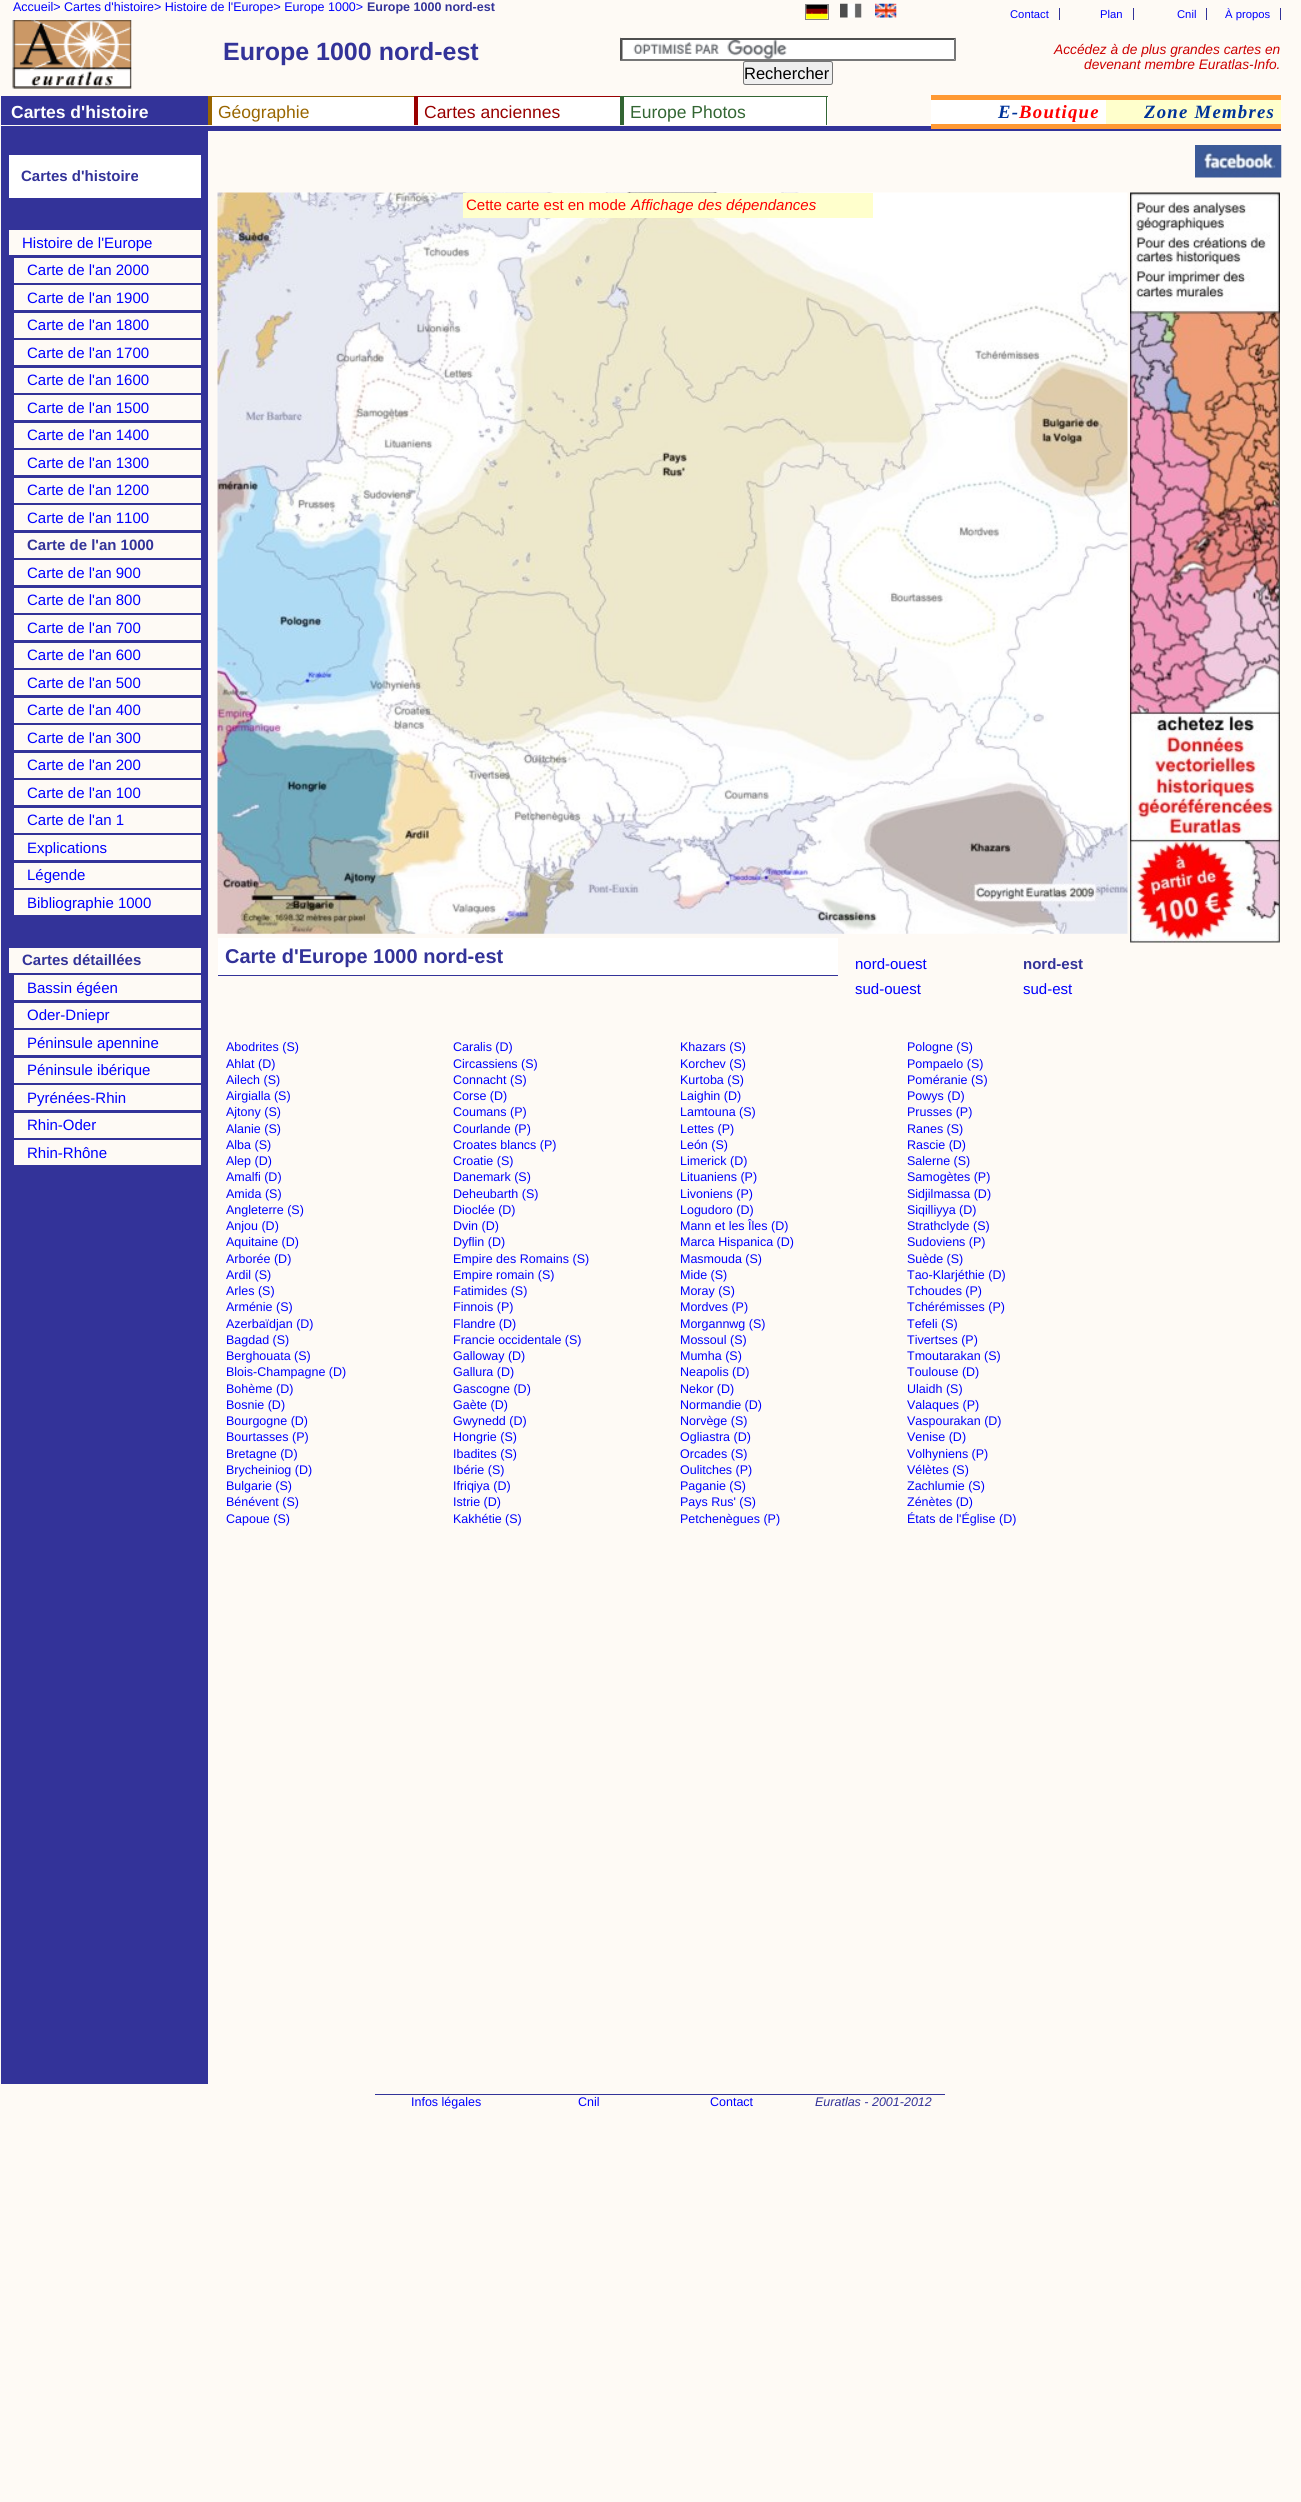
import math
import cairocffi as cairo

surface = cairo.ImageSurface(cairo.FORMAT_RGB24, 1301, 2502)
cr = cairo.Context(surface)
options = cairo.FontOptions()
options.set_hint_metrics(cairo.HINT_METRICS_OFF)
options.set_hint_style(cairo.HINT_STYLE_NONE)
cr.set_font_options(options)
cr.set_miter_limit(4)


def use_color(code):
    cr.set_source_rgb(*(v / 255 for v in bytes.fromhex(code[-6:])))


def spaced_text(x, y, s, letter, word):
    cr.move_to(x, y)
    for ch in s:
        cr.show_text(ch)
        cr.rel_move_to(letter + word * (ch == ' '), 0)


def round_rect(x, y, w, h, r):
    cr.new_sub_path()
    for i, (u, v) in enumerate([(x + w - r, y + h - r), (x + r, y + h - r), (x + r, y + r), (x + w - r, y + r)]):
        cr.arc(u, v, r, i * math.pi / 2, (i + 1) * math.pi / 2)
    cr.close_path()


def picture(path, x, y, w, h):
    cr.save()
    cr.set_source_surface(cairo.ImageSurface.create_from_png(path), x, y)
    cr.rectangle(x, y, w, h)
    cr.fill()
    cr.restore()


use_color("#fefaf5")
cr.paint()
cr.select_font_face("Liberation Sans")
cr.set_font_size(12.5)
use_color("#0000ff")
cr.move_to(13, 11)
cr.show_text("Accueil> Cartes d'histoire> Histoire de l'Europe> Europe 1000>")
cr.select_font_face("Liberation Sans", cairo.FONT_SLANT_NORMAL, cairo.FONT_WEIGHT_BOLD)
use_color("#333399")
cr.move_to(367, 11)
cr.show_text("Europe 1000 nord-est")
cr.rectangle(805.5, 4.5, 23, 15)
use_color("#808080")
cr.set_line_width(1)
cr.stroke()
picture("img1.png", 806, 5, 22, 14)
picture("img2.png", 840, 3, 22, 15)
picture("img3.png", 875, 3, 22, 15)
use_color("#333399")
cr.rectangle(1059, 8, 1, 12)
cr.fill()
cr.select_font_face("Liberation Sans")
cr.set_font_size(11.25)
use_color("#0000ff")
cr.move_to(1010, 18)
cr.show_text("Contact")
use_color("#333399")
cr.rectangle(1133, 8, 1, 12)
cr.fill()
use_color("#0000ff")
cr.move_to(1100, 18)
cr.show_text("Plan")
use_color("#333399")
cr.rectangle(1206, 8, 1, 12)
cr.fill()
use_color("#0000ff")
cr.move_to(1177, 18)
cr.show_text("Cnil")
use_color("#333399")
cr.rectangle(1280, 8, 1, 12)
cr.fill()
use_color("#0000ff")
cr.move_to(1225, 18)
cr.show_text("À propos")
picture("img4.png", 12, 20, 120, 69)
cr.select_font_face("Liberation Sans", cairo.FONT_SLANT_NORMAL, cairo.FONT_WEIGHT_BOLD)
cr.set_font_size(25)
use_color("#333399")
cr.move_to(223, 60)
cr.show_text("Europe 1000 nord-est")
cr.select_font_face("Liberation Sans", cairo.FONT_SLANT_ITALIC)
cr.set_font_size(13.75)
use_color("#cc0000")
cr.move_to(1054, 54)
cr.show_text("Accédez à de plus grandes cartes en")
cr.move_to(1084, 69)
cr.show_text("devenant membre Euratlas-Info.")
use_color("#ffffff")
cr.rectangle(620, 38, 336, 23)
cr.fill()
picture("img5.png", 633, 40, 154, 19)
use_color("#4f4f4f")
cr.new_path()
cr.move_to(620, 38)
cr.line_to(956, 38)
cr.line_to(954, 40)
cr.line_to(622, 40)
cr.close_path()
cr.fill()
use_color("#767676")
cr.new_path()
cr.move_to(956, 37.5)
cr.line_to(956, 61)
cr.line_to(954, 59)
cr.line_to(954, 40)
cr.close_path()
cr.fill()
cr.new_path()
cr.move_to(956, 61)
cr.line_to(620, 61)
cr.line_to(622, 59)
cr.line_to(954, 59)
cr.close_path()
cr.fill()
use_color("#4f4f4f")
cr.new_path()
cr.move_to(620, 61)
cr.line_to(620, 37.5)
cr.line_to(622.5, 40)
cr.line_to(622.5, 59)
cr.close_path()
cr.fill()
use_color("#efefef")
round_rect(743.5, 61.5, 89, 23, 2)
cr.fill_preserve()
use_color("#767676")
cr.stroke()
cr.select_font_face("Liberation Sans")
cr.set_font_size(16.5)
use_color("#000000")
cr.move_to(744, 79)
cr.show_text("Rechercher")
use_color("#333399")
cr.rectangle(1, 96, 207, 29)
cr.fill()
cr.select_font_face("Liberation Sans", cairo.FONT_SLANT_NORMAL, cairo.FONT_WEIGHT_BOLD)
cr.set_font_size(17.5)
use_color("#ffffff")
cr.move_to(11, 118)
cr.show_text("Cartes d'histoire")
cr.rectangle(212, 97, 202, 28)
cr.fill()
use_color("#996600")
cr.rectangle(208, 96, 206, 1)
cr.fill()
cr.rectangle(208, 96, 4, 29)
cr.fill()
cr.select_font_face("Liberation Sans")
cr.move_to(218, 118)
cr.show_text("Géographie")
use_color("#ffffff")
cr.rectangle(418, 97, 202, 28)
cr.fill()
use_color("#990000")
cr.rectangle(414, 96, 206, 1)
cr.fill()
cr.rectangle(414, 96, 4, 29)
cr.fill()
cr.move_to(424, 118)
cr.show_text("Cartes anciennes")
use_color("#ffffff")
cr.rectangle(624, 97, 204, 28)
cr.fill()
use_color("#336633")
cr.rectangle(620, 96, 208, 1)
cr.fill()
cr.rectangle(826, 96, 1, 29)
cr.fill()
cr.rectangle(620, 96, 4, 29)
cr.fill()
cr.move_to(630, 118)
cr.show_text("Europe Photos")
use_color("#ffffff")
cr.rectangle(931, 100, 175, 24)
cr.fill()
use_color("#ff9933")
cr.rectangle(931, 95, 350, 5)
cr.fill()
use_color("#333399")
cr.rectangle(1, 126, 1280, 5)
cr.fill()
use_color("#ff9933")
cr.rectangle(931, 124, 350, 5)
cr.fill()
cr.select_font_face("Liberation Serif", cairo.FONT_SLANT_ITALIC, cairo.FONT_WEIGHT_BOLD)
cr.set_font_size(18.75)
use_color("#003399")
spaced_text(998, 118, "E-", 1.25, 0)
use_color("#ff0000")
spaced_text(1019, 118, "Boutique", 1.25, 0)
use_color("#ffffcc")
cr.rectangle(1106, 100, 175, 24)
cr.fill()
use_color("#003399")
spaced_text(1144, 118, "Zone Membres", 1.25, 0)
picture("img6.png", 1195, 145, 87, 33)
use_color("#333399")
cr.rectangle(1, 131, 207, 1953)
cr.fill()
use_color("#ffffff")
cr.rectangle(9, 155, 192, 43)
cr.fill()
cr.select_font_face("Liberation Sans", cairo.FONT_SLANT_NORMAL, cairo.FONT_WEIGHT_BOLD)
cr.set_font_size(15)
use_color("#333399")
cr.move_to(21, 181)
cr.show_text("Cartes d'histoire")
use_color("#fefaf5")
cr.rectangle(9, 230, 192, 25)
cr.fill()
cr.select_font_face("Liberation Sans")
use_color("#0000ff")
cr.move_to(22, 248)
cr.show_text("Histoire de l'Europe")
use_color("#fefaf5")
cr.rectangle(14, 258, 187, 25)
cr.fill()
use_color("#0000ff")
cr.move_to(27, 275)
cr.show_text("Carte de l'an 2000")
use_color("#fefaf5")
cr.rectangle(14, 285, 187, 25)
cr.fill()
use_color("#0000ff")
cr.move_to(27, 303)
cr.show_text("Carte de l'an 1900")
use_color("#fefaf5")
cr.rectangle(14, 313, 187, 25)
cr.fill()
use_color("#0000ff")
cr.move_to(27, 330)
cr.show_text("Carte de l'an 1800")
use_color("#fefaf5")
cr.rectangle(14, 340, 187, 25)
cr.fill()
use_color("#0000ff")
cr.move_to(27, 358)
cr.show_text("Carte de l'an 1700")
use_color("#fefaf5")
cr.rectangle(14, 368, 187, 25)
cr.fill()
use_color("#0000ff")
cr.move_to(27, 385)
cr.show_text("Carte de l'an 1600")
use_color("#fefaf5")
cr.rectangle(14, 395, 187, 25)
cr.fill()
use_color("#0000ff")
cr.move_to(27, 413)
cr.show_text("Carte de l'an 1500")
use_color("#fefaf5")
cr.rectangle(14, 423, 187, 25)
cr.fill()
use_color("#0000ff")
cr.move_to(27, 440)
cr.show_text("Carte de l'an 1400")
use_color("#fefaf5")
cr.rectangle(14, 450, 187, 25)
cr.fill()
use_color("#0000ff")
cr.move_to(27, 468)
cr.show_text("Carte de l'an 1300")
use_color("#fefaf5")
cr.rectangle(14, 478, 187, 25)
cr.fill()
use_color("#0000ff")
cr.move_to(27, 495)
cr.show_text("Carte de l'an 1200")
use_color("#fefaf5")
cr.rectangle(14, 505, 187, 25)
cr.fill()
use_color("#0000ff")
cr.move_to(27, 523)
cr.show_text("Carte de l'an 1100")
use_color("#fefaf5")
cr.rectangle(14, 533, 187, 25)
cr.fill()
cr.select_font_face("Liberation Sans", cairo.FONT_SLANT_NORMAL, cairo.FONT_WEIGHT_BOLD)
use_color("#333399")
cr.move_to(27, 550)
cr.show_text("Carte de l'an 1000")
use_color("#fefaf5")
cr.rectangle(14, 560, 187, 25)
cr.fill()
cr.select_font_face("Liberation Sans")
use_color("#0000ff")
cr.move_to(27, 578)
cr.show_text("Carte de l'an 900")
use_color("#fefaf5")
cr.rectangle(14, 588, 187, 25)
cr.fill()
use_color("#0000ff")
cr.move_to(27, 605)
cr.show_text("Carte de l'an 800")
use_color("#fefaf5")
cr.rectangle(14, 615, 187, 25)
cr.fill()
use_color("#0000ff")
cr.move_to(27, 633)
cr.show_text("Carte de l'an 700")
use_color("#fefaf5")
cr.rectangle(14, 643, 187, 25)
cr.fill()
use_color("#0000ff")
cr.move_to(27, 660)
cr.show_text("Carte de l'an 600")
use_color("#fefaf5")
cr.rectangle(14, 670, 187, 25)
cr.fill()
use_color("#0000ff")
cr.move_to(27, 688)
cr.show_text("Carte de l'an 500")
use_color("#fefaf5")
cr.rectangle(14, 698, 187, 25)
cr.fill()
use_color("#0000ff")
cr.move_to(27, 715)
cr.show_text("Carte de l'an 400")
use_color("#fefaf5")
cr.rectangle(14, 725, 187, 25)
cr.fill()
use_color("#0000ff")
cr.move_to(27, 743)
cr.show_text("Carte de l'an 300")
use_color("#fefaf5")
cr.rectangle(14, 753, 187, 25)
cr.fill()
use_color("#0000ff")
cr.move_to(27, 770)
cr.show_text("Carte de l'an 200")
use_color("#fefaf5")
cr.rectangle(14, 780, 187, 25)
cr.fill()
use_color("#0000ff")
cr.move_to(27, 798)
cr.show_text("Carte de l'an 100")
use_color("#fefaf5")
cr.rectangle(14, 808, 187, 25)
cr.fill()
use_color("#0000ff")
cr.move_to(27, 825)
cr.show_text("Carte de l'an 1")
use_color("#fefaf5")
cr.rectangle(14, 835, 187, 25)
cr.fill()
use_color("#0000ff")
cr.move_to(27, 853)
cr.show_text("Explications")
use_color("#fefaf5")
cr.rectangle(14, 863, 187, 25)
cr.fill()
use_color("#0000ff")
cr.move_to(27, 880)
cr.show_text("Légende")
use_color("#fefaf5")
cr.rectangle(14, 890, 187, 25)
cr.fill()
use_color("#0000ff")
cr.move_to(27, 908)
cr.show_text("Bibliographie 1000")
use_color("#fefaf5")
cr.rectangle(9, 948, 192, 25)
cr.fill()
cr.select_font_face("Liberation Sans", cairo.FONT_SLANT_NORMAL, cairo.FONT_WEIGHT_BOLD)
use_color("#333399")
cr.move_to(22, 965)
cr.show_text("Cartes détaillées")
use_color("#fefaf5")
cr.rectangle(14, 975, 187, 25)
cr.fill()
cr.select_font_face("Liberation Sans")
use_color("#0000ff")
cr.move_to(27, 993)
cr.show_text("Bassin égéen")
use_color("#fefaf5")
cr.rectangle(14, 1003, 187, 25)
cr.fill()
use_color("#0000ff")
cr.move_to(27, 1020)
cr.show_text("Oder-Dniepr")
use_color("#fefaf5")
cr.rectangle(14, 1030, 187, 25)
cr.fill()
use_color("#0000ff")
cr.move_to(27, 1048)
cr.show_text("Péninsule apennine")
use_color("#fefaf5")
cr.rectangle(14, 1058, 187, 25)
cr.fill()
use_color("#0000ff")
cr.move_to(27, 1075)
cr.show_text("Péninsule ibérique")
use_color("#fefaf5")
cr.rectangle(14, 1085, 187, 25)
cr.fill()
use_color("#0000ff")
cr.move_to(27, 1103)
cr.show_text("Pyrénées-Rhin")
use_color("#fefaf5")
cr.rectangle(14, 1113, 187, 25)
cr.fill()
use_color("#0000ff")
cr.move_to(27, 1130)
cr.show_text("Rhin-Oder")
use_color("#fefaf5")
cr.rectangle(14, 1140, 187, 25)
cr.fill()
use_color("#0000ff")
cr.move_to(27, 1158)
cr.show_text("Rhin-Rhône")
picture("img7.png", 217, 192, 911, 742)
picture("img8.png", 1130, 192, 150, 751)
use_color("#ffffcc")
cr.rectangle(463, 193, 410, 25)
cr.fill()
use_color("#ff0000")
cr.move_to(466, 210)
cr.show_text("Cette carte est en mode")
cr.select_font_face("Liberation Sans", cairo.FONT_SLANT_ITALIC)
cr.move_to(631, 210)
cr.show_text("Affichage des dépendances")
use_color("#ffffff")
cr.rectangle(218, 938, 620, 37)
cr.fill()
use_color("#333399")
cr.rectangle(218, 975, 620, 1)
cr.fill()
cr.select_font_face("Liberation Sans", cairo.FONT_SLANT_NORMAL, cairo.FONT_WEIGHT_BOLD)
cr.set_font_size(20)
cr.move_to(225, 963)
cr.show_text("Carte d'Europe 1000 nord-est")
cr.select_font_face("Liberation Sans")
cr.set_font_size(15)
use_color("#0000ff")
cr.move_to(855, 969)
cr.show_text("nord-ouest")
cr.select_font_face("Liberation Sans", cairo.FONT_SLANT_NORMAL, cairo.FONT_WEIGHT_BOLD)
use_color("#333399")
cr.move_to(1023, 969)
cr.show_text("nord-est")
cr.select_font_face("Liberation Sans")
use_color("#0000ff")
cr.move_to(855, 994)
cr.show_text("sud-ouest")
cr.move_to(1023, 994)
cr.show_text("sud-est")
cr.set_font_size(12.5)
cr.move_to(226, 1051)
cr.show_text("Abodrites (S)")
cr.move_to(453, 1051)
cr.show_text("Caralis (D)")
cr.move_to(680, 1051)
cr.show_text("Khazars (S)")
cr.move_to(907, 1051)
cr.show_text("Pologne (S)")
cr.move_to(226, 1068)
cr.show_text("Ahlat (D)")
cr.move_to(453, 1068)
cr.show_text("Circassiens (S)")
cr.move_to(680, 1068)
cr.show_text("Korchev (S)")
cr.move_to(907, 1068)
cr.show_text("Pompaelo (S)")
cr.move_to(226, 1084)
cr.show_text("Ailech (S)")
cr.move_to(453, 1084)
cr.show_text("Connacht (S)")
cr.move_to(680, 1084)
cr.show_text("Kurtoba (S)")
cr.move_to(907, 1084)
cr.show_text("Poméranie (S)")
cr.move_to(226, 1100)
cr.show_text("Airgialla (S)")
cr.move_to(453, 1100)
cr.show_text("Corse (D)")
cr.move_to(680, 1100)
cr.show_text("Laighin (D)")
cr.move_to(907, 1100)
cr.show_text("Powys (D)")
cr.move_to(226, 1116)
cr.show_text("Ajtony (S)")
cr.move_to(453, 1116)
cr.show_text("Coumans (P)")
cr.move_to(680, 1116)
cr.show_text("Lamtouna (S)")
cr.move_to(907, 1116)
cr.show_text("Prusses (P)")
cr.move_to(226, 1133)
cr.show_text("Alanie (S)")
cr.move_to(453, 1133)
cr.show_text("Courlande (P)")
cr.move_to(680, 1133)
cr.show_text("Lettes (P)")
cr.move_to(907, 1133)
cr.show_text("Ranes (S)")
cr.move_to(226, 1149)
cr.show_text("Alba (S)")
cr.move_to(453, 1149)
cr.show_text("Croates blancs (P)")
cr.move_to(680, 1149)
cr.show_text("León (S)")
cr.move_to(907, 1149)
cr.show_text("Rascie (D)")
cr.move_to(226, 1165)
cr.show_text("Alep (D)")
cr.move_to(453, 1165)
cr.show_text("Croatie (S)")
cr.move_to(680, 1165)
cr.show_text("Limerick (D)")
cr.move_to(907, 1165)
cr.show_text("Salerne (S)")
cr.move_to(226, 1181)
cr.show_text("Amalfi (D)")
cr.move_to(453, 1181)
cr.show_text("Danemark (S)")
cr.move_to(680, 1181)
cr.show_text("Lituaniens (P)")
cr.move_to(907, 1181)
cr.show_text("Samogètes (P)")
cr.move_to(226, 1198)
cr.show_text("Amida (S)")
cr.move_to(453, 1198)
cr.show_text("Deheubarth (S)")
cr.move_to(680, 1198)
cr.show_text("Livoniens (P)")
cr.move_to(907, 1198)
cr.show_text("Sidjilmassa (D)")
cr.move_to(226, 1214)
cr.show_text("Angleterre (S)")
cr.move_to(453, 1214)
cr.show_text("Dioclée (D)")
cr.move_to(680, 1214)
cr.show_text("Logudoro (D)")
cr.move_to(907, 1214)
cr.show_text("Siqilliyya (D)")
cr.move_to(226, 1230)
cr.show_text("Anjou (D)")
cr.move_to(453, 1230)
cr.show_text("Dvin (D)")
cr.move_to(680, 1230)
cr.show_text("Mann et les Îles (D)")
cr.move_to(907, 1230)
cr.show_text("Strathclyde (S)")
cr.move_to(226, 1246)
cr.show_text("Aquitaine (D)")
cr.move_to(453, 1246)
cr.show_text("Dyflin (D)")
cr.move_to(680, 1246)
cr.show_text("Marca Hispanica (D)")
cr.move_to(907, 1246)
cr.show_text("Sudoviens (P)")
cr.move_to(226, 1263)
cr.show_text("Arborée (D)")
cr.move_to(453, 1263)
cr.show_text("Empire des Romains (S)")
cr.move_to(680, 1263)
cr.show_text("Masmouda (S)")
cr.move_to(907, 1263)
cr.show_text("Suède (S)")
cr.move_to(226, 1279)
cr.show_text("Ardil (S)")
cr.move_to(453, 1279)
cr.show_text("Empire romain (S)")
cr.move_to(680, 1279)
cr.show_text("Mide (S)")
cr.move_to(907, 1279)
cr.show_text("Tao-Klarjéthie (D)")
cr.move_to(226, 1295)
cr.show_text("Arles (S)")
cr.move_to(453, 1295)
cr.show_text("Fatimides (S)")
cr.move_to(680, 1295)
cr.show_text("Moray (S)")
cr.move_to(907, 1295)
cr.show_text("Tchoudes (P)")
cr.move_to(226, 1311)
cr.show_text("Arménie (S)")
cr.move_to(453, 1311)
cr.show_text("Finnois (P)")
cr.move_to(680, 1311)
cr.show_text("Mordves (P)")
cr.move_to(907, 1311)
cr.show_text("Tchérémisses (P)")
cr.move_to(226, 1328)
cr.show_text("Azerbaïdjan (D)")
cr.move_to(453, 1328)
cr.show_text("Flandre (D)")
cr.move_to(680, 1328)
cr.show_text("Morgannwg (S)")
cr.move_to(907, 1328)
cr.show_text("Tefeli (S)")
cr.move_to(226, 1344)
cr.show_text("Bagdad (S)")
cr.move_to(453, 1344)
cr.show_text("Francie occidentale (S)")
cr.move_to(680, 1344)
cr.show_text("Mossoul (S)")
cr.move_to(907, 1344)
cr.show_text("Tivertses (P)")
cr.move_to(226, 1360)
cr.show_text("Berghouata (S)")
cr.move_to(453, 1360)
cr.show_text("Galloway (D)")
cr.move_to(680, 1360)
cr.show_text("Mumha (S)")
cr.move_to(907, 1360)
cr.show_text("Tmoutarakan (S)")
cr.move_to(226, 1376)
cr.show_text("Blois-Champagne (D)")
cr.move_to(453, 1376)
cr.show_text("Gallura (D)")
cr.move_to(680, 1376)
cr.show_text("Neapolis (D)")
cr.move_to(907, 1376)
cr.show_text("Toulouse (D)")
cr.move_to(226, 1393)
cr.show_text("Bohème (D)")
cr.move_to(453, 1393)
cr.show_text("Gascogne (D)")
cr.move_to(680, 1393)
cr.show_text("Nekor (D)")
cr.move_to(907, 1393)
cr.show_text("Ulaidh (S)")
cr.move_to(226, 1409)
cr.show_text("Bosnie (D)")
cr.move_to(453, 1409)
cr.show_text("Gaète (D)")
cr.move_to(680, 1409)
cr.show_text("Normandie (D)")
cr.move_to(907, 1409)
cr.show_text("Valaques (P)")
cr.move_to(226, 1425)
cr.show_text("Bourgogne (D)")
cr.move_to(453, 1425)
cr.show_text("Gwynedd (D)")
cr.move_to(680, 1425)
cr.show_text("Norvège (S)")
cr.move_to(907, 1425)
cr.show_text("Vaspourakan (D)")
cr.move_to(226, 1441)
cr.show_text("Bourtasses (P)")
cr.move_to(453, 1441)
cr.show_text("Hongrie (S)")
cr.move_to(680, 1441)
cr.show_text("Ogliastra (D)")
cr.move_to(907, 1441)
cr.show_text("Venise (D)")
cr.move_to(226, 1458)
cr.show_text("Bretagne (D)")
cr.move_to(453, 1458)
cr.show_text("Ibadites (S)")
cr.move_to(680, 1458)
cr.show_text("Orcades (S)")
cr.move_to(907, 1458)
cr.show_text("Volhyniens (P)")
cr.move_to(226, 1474)
cr.show_text("Brycheiniog (D)")
cr.move_to(453, 1474)
cr.show_text("Ibérie (S)")
cr.move_to(680, 1474)
cr.show_text("Oulitches (P)")
cr.move_to(907, 1474)
cr.show_text("Vélètes (S)")
cr.move_to(226, 1490)
cr.show_text("Bulgarie (S)")
cr.move_to(453, 1490)
cr.show_text("Ifriqiya (D)")
cr.move_to(680, 1490)
cr.show_text("Paganie (S)")
cr.move_to(907, 1490)
cr.show_text("Zachlumie (S)")
cr.move_to(226, 1506)
cr.show_text("Bénévent (S)")
cr.move_to(453, 1506)
cr.show_text("Istrie (D)")
cr.move_to(680, 1506)
cr.show_text("Pays Rus' (S)")
cr.move_to(907, 1506)
cr.show_text("Zénètes (D)")
cr.move_to(226, 1523)
cr.show_text("Capoue (S)")
cr.move_to(453, 1523)
cr.show_text("Kakhétie (S)")
cr.move_to(680, 1523)
cr.show_text("Petchenègues (P)")
cr.move_to(907, 1523)
cr.show_text("États de l'Église (D)")
use_color("#333399")
cr.rectangle(375, 2094, 570, 1)
cr.fill()
use_color("#0000ff")
cr.move_to(411, 2106)
cr.show_text("Infos légales")
cr.move_to(578, 2106)
cr.show_text("Cnil")
cr.move_to(710, 2106)
cr.show_text("Contact")
cr.select_font_face("Liberation Sans", cairo.FONT_SLANT_ITALIC)
use_color("#333399")
cr.move_to(815, 2106)
cr.show_text("Euratlas - 2001-2012")
surface.write_to_png("result.png")
